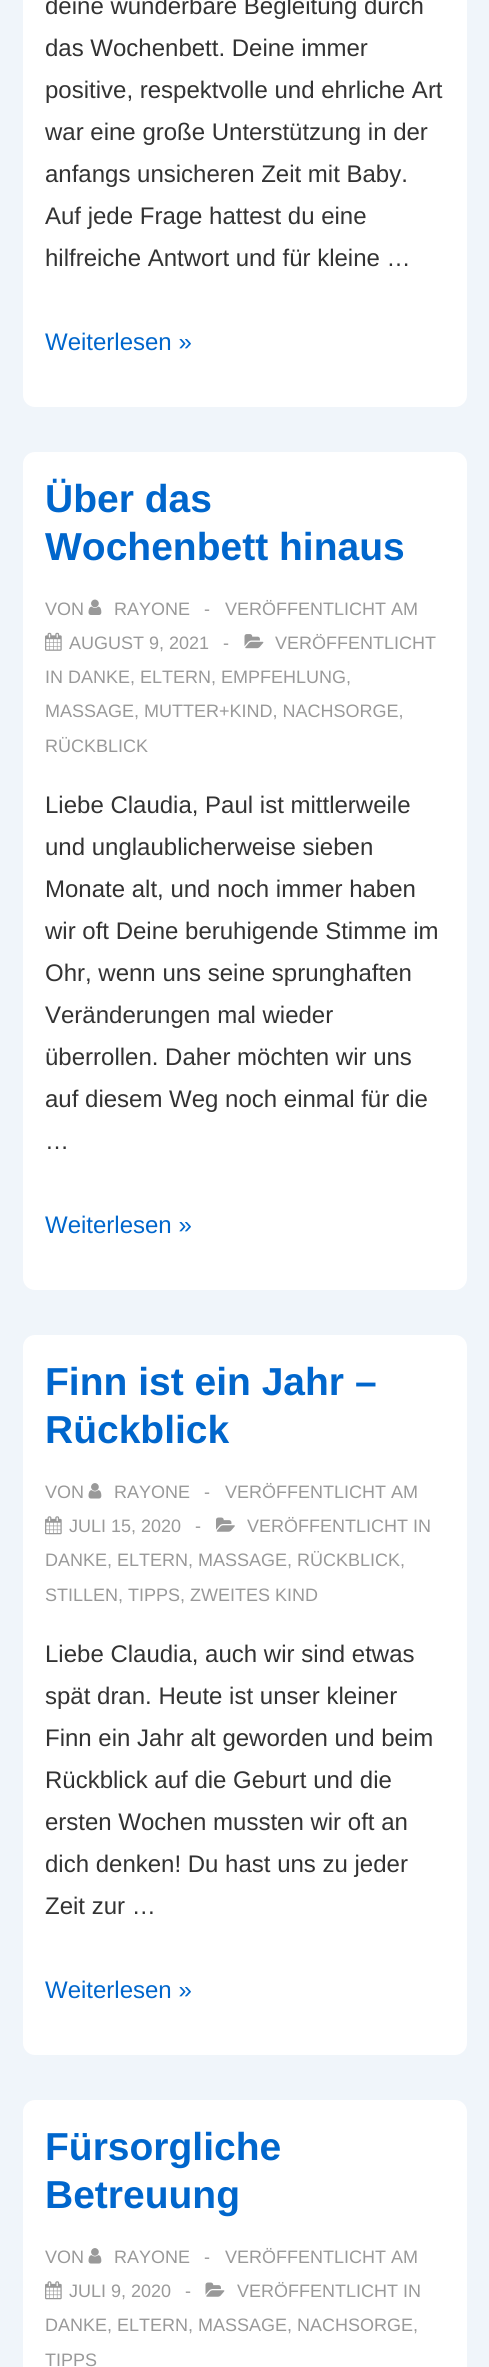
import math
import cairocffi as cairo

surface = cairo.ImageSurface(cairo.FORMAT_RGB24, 489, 2367)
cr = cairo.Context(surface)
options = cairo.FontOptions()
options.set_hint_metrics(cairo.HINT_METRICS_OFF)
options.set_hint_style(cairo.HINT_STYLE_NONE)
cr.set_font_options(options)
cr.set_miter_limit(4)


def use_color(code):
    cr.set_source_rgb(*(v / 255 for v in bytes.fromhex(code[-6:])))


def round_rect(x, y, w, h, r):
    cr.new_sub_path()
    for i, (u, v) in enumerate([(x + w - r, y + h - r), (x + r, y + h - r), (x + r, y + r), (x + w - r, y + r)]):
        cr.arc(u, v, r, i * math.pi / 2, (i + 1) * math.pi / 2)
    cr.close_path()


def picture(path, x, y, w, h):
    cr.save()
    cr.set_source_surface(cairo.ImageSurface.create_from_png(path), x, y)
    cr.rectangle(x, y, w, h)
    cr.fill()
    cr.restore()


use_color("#f0f5fa")
cr.paint()
use_color("#ffffff")
round_rect(23, -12, 444, 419, 12)
cr.fill()
cr.select_font_face("Liberation Sans")
cr.set_font_size(24)
use_color("#333333")
cr.move_to(45, 14)
cr.show_text("deine wunderbare Begleitung durch")
cr.move_to(45, 56)
cr.show_text("das Wochenbett. Deine immer")
cr.move_to(45, 98)
cr.show_text("positive, respektvolle und ehrliche Art")
cr.move_to(45, 140)
cr.show_text("war eine große Unterstützung in der")
cr.move_to(45, 182)
cr.show_text("anfangs unsicheren Zeit mit Baby.")
cr.move_to(45, 224)
cr.show_text("Auf jede Frage hattest du eine")
cr.move_to(45, 266)
cr.show_text("hilfreiche Antwort und für kleine …")
use_color("#0066cc")
cr.move_to(45, 350)
cr.show_text("Weiterlesen »")
use_color("#ffffff")
round_rect(23, 452, 444, 838, 12)
cr.fill()
cr.select_font_face("Liberation Sans", cairo.FONT_SLANT_NORMAL, cairo.FONT_WEIGHT_BOLD)
cr.set_font_size(39)
use_color("#0066cc")
cr.move_to(45, 512)
cr.show_text("Über das")
cr.move_to(45, 560)
cr.show_text("Wochenbett hinaus")
cr.select_font_face("Liberation Sans")
cr.set_font_size(18)
use_color("#999999")
cr.move_to(45, 615)
cr.show_text("VON")
picture("img1.png", 88, 599, 14, 16)
cr.move_to(114, 615)
cr.show_text("RAYONE")
cr.move_to(204, 615)
cr.show_text("-")
cr.move_to(225, 615)
cr.show_text("VERÖFFENTLICHT AM")
picture("img2.png", 45, 632, 17, 19)
cr.move_to(69, 649)
cr.show_text("AUGUST 9, 2021")
cr.move_to(223, 649)
cr.show_text("-")
picture("img3.png", 244, 634, 20, 15)
cr.move_to(275, 649)
cr.show_text("VERÖFFENTLICHT")
cr.move_to(45, 683)
cr.show_text("IN DANKE, ELTERN, EMPFEHLUNG,")
cr.move_to(45, 717)
cr.show_text("MASSAGE, MUTTER+KIND, NACHSORGE,")
cr.move_to(45, 752)
cr.show_text("RÜCKBLICK")
cr.set_font_size(24)
use_color("#333333")
cr.move_to(45, 813)
cr.show_text("Liebe Claudia, Paul ist mittlerweile")
cr.move_to(45, 855)
cr.show_text("und unglaublicherweise sieben")
cr.move_to(45, 897)
cr.show_text("Monate alt, und noch immer haben")
cr.move_to(45, 939)
cr.show_text("wir oft Deine beruhigende Stimme im")
cr.move_to(45, 981)
cr.show_text("Ohr, wenn uns seine sprunghaften")
cr.move_to(45, 1023)
cr.show_text("Veränderungen mal wieder")
cr.move_to(45, 1065)
cr.show_text("überrollen. Daher möchten wir uns")
cr.move_to(45, 1107)
cr.show_text("auf diesem Weg noch einmal für die")
cr.move_to(45, 1149)
cr.show_text("…")
use_color("#0066cc")
cr.move_to(45, 1233)
cr.show_text("Weiterlesen »")
use_color("#ffffff")
round_rect(23, 1335, 444, 720, 12)
cr.fill()
cr.select_font_face("Liberation Sans", cairo.FONT_SLANT_NORMAL, cairo.FONT_WEIGHT_BOLD)
cr.set_font_size(39)
use_color("#0066cc")
cr.move_to(45, 1395)
cr.show_text("Finn ist ein Jahr –")
cr.move_to(45, 1443)
cr.show_text("Rückblick")
cr.select_font_face("Liberation Sans")
cr.set_font_size(18)
use_color("#999999")
cr.move_to(45, 1498)
cr.show_text("VON")
picture("img4.png", 88, 1483, 14, 16)
cr.move_to(114, 1498)
cr.show_text("RAYONE")
cr.move_to(204, 1498)
cr.show_text("-")
cr.move_to(225, 1498)
cr.show_text("VERÖFFENTLICHT AM")
picture("img5.png", 45, 1516, 17, 19)
cr.move_to(69, 1532)
cr.show_text("JULI 15, 2020")
cr.move_to(195, 1532)
cr.show_text("-")
picture("img6.png", 216, 1517, 19, 15)
cr.move_to(247, 1532)
cr.show_text("VERÖFFENTLICHT IN")
cr.move_to(45, 1566)
cr.show_text("DANKE, ELTERN, MASSAGE, RÜCKBLICK,")
cr.move_to(45, 1601)
cr.show_text("STILLEN, TIPPS, ZWEITES KIND")
cr.set_font_size(24)
use_color("#333333")
cr.move_to(45, 1662)
cr.show_text("Liebe Claudia, auch wir sind etwas")
cr.move_to(45, 1704)
cr.show_text("spät dran. Heute ist unser kleiner")
cr.move_to(45, 1746)
cr.show_text("Finn ein Jahr alt geworden und beim")
cr.move_to(45, 1788)
cr.show_text("Rückblick auf die Geburt und die")
cr.move_to(45, 1830)
cr.show_text("ersten Wochen mussten wir oft an")
cr.move_to(45, 1872)
cr.show_text("dich denken! Du hast uns zu jeder")
cr.move_to(45, 1914)
cr.show_text("Zeit zur …")
use_color("#0066cc")
cr.move_to(45, 1998)
cr.show_text("Weiterlesen »")
use_color("#ffffff")
round_rect(23, 2100, 444, 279, 12)
cr.fill()
cr.select_font_face("Liberation Sans", cairo.FONT_SLANT_NORMAL, cairo.FONT_WEIGHT_BOLD)
cr.set_font_size(39)
use_color("#0066cc")
cr.move_to(45, 2160)
cr.show_text("Fürsorgliche")
cr.move_to(45, 2208)
cr.show_text("Betreuung")
cr.select_font_face("Liberation Sans")
cr.set_font_size(18)
use_color("#999999")
cr.move_to(45, 2263)
cr.show_text("VON")
picture("img4.png", 88, 2248, 14, 16)
cr.move_to(114, 2263)
cr.show_text("RAYONE")
cr.move_to(204, 2263)
cr.show_text("-")
cr.move_to(225, 2263)
cr.show_text("VERÖFFENTLICHT AM")
picture("img5.png", 45, 2281, 17, 19)
cr.move_to(69, 2297)
cr.show_text("JULI 9, 2020")
cr.move_to(185, 2297)
cr.show_text("-")
picture("img7.png", 205, 2282, 20, 15)
cr.move_to(237, 2297)
cr.show_text("VERÖFFENTLICHT IN")
cr.move_to(45, 2331)
cr.show_text("DANKE, ELTERN, MASSAGE, NACHSORGE,")
cr.move_to(45, 2366)
cr.show_text("TIPPS")
surface.write_to_png("result.png")
